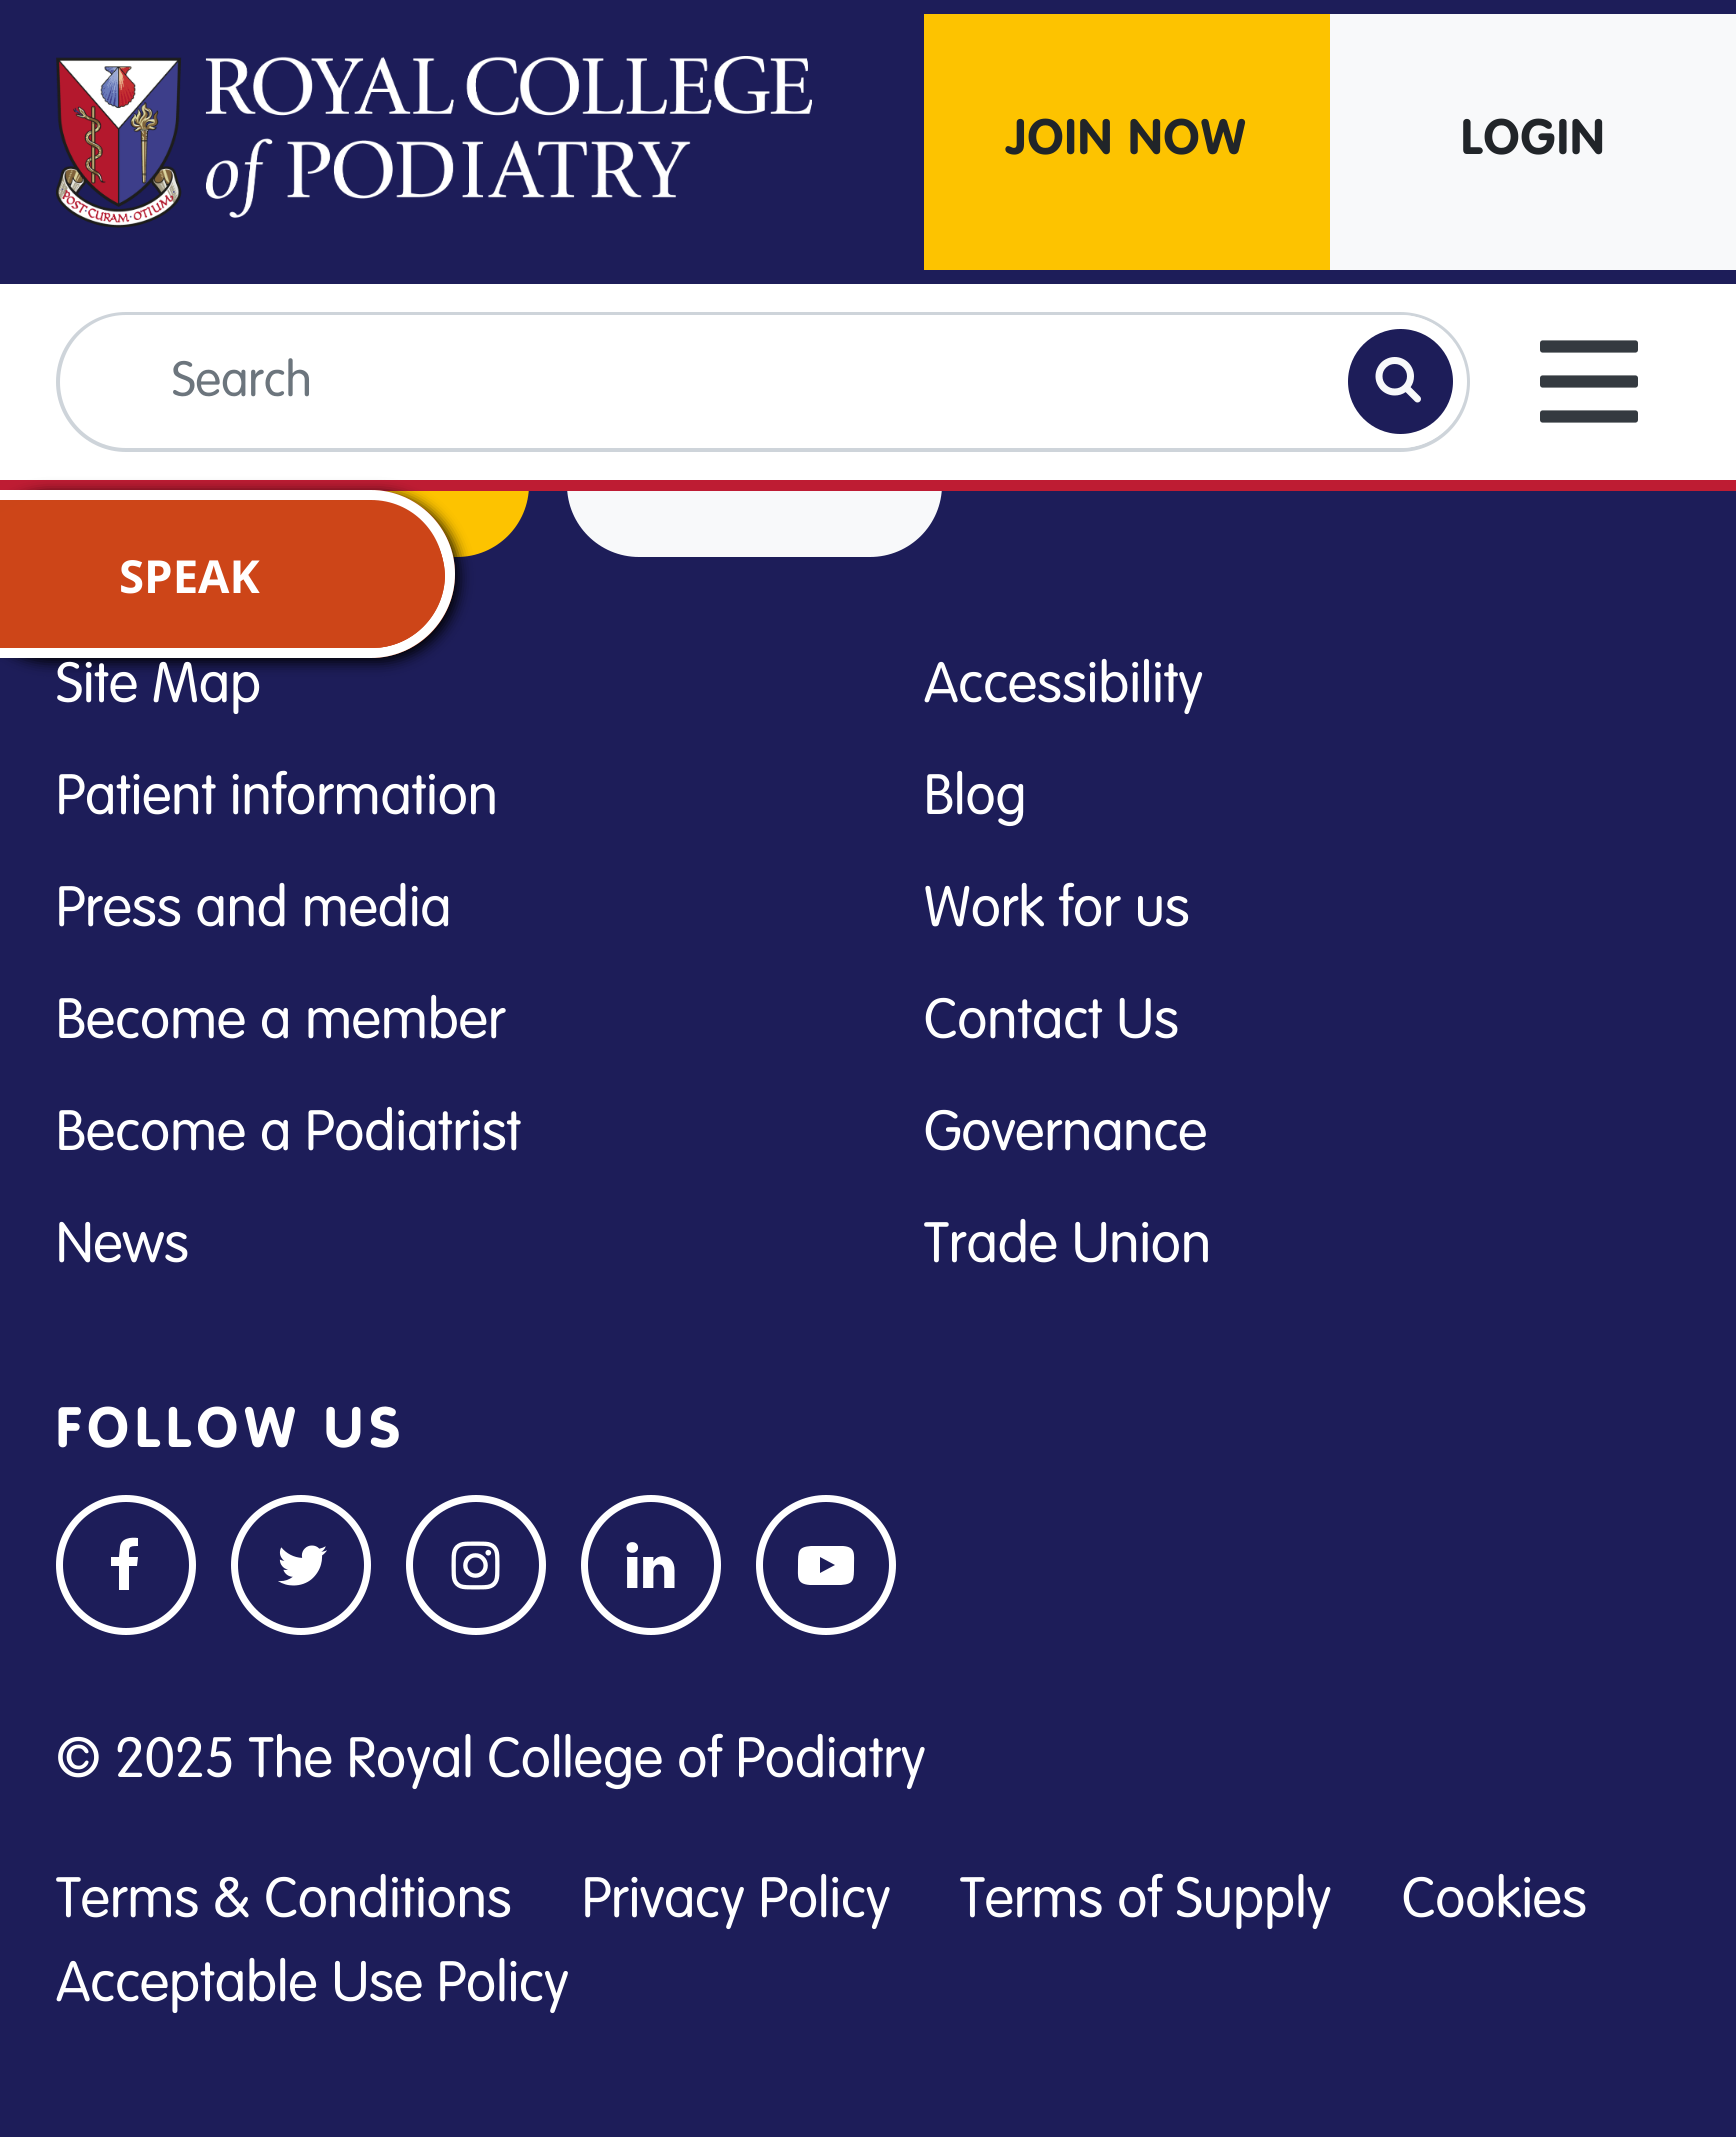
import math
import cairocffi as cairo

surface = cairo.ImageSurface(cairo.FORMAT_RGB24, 1736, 2137)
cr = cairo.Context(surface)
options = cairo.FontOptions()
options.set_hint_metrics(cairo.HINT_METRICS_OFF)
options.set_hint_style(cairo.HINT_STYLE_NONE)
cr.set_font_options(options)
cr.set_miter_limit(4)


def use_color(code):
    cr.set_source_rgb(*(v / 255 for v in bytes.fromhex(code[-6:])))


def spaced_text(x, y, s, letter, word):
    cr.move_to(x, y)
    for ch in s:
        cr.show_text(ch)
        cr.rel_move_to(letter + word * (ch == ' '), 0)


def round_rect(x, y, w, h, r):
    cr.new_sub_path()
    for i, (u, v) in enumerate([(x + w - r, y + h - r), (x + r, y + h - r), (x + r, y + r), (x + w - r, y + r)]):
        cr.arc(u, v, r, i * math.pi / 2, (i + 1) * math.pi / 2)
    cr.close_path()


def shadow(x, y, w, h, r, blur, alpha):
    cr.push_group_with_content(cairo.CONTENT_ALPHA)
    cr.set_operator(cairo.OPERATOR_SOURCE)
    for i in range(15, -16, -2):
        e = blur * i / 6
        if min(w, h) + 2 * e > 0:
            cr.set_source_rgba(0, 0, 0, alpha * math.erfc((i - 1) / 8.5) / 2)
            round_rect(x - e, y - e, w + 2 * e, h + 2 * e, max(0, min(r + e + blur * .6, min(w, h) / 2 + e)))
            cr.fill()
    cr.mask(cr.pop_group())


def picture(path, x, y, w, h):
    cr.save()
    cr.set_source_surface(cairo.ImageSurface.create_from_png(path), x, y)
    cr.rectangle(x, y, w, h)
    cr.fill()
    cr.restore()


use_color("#1d1d59")
cr.paint()
picture("img1.png", 56, 56, 756, 172)
use_color("#fdc300")
cr.rectangle(924, 14, 406, 256)
cr.fill()
cr.select_font_face("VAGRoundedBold", cairo.FONT_SLANT_NORMAL, cairo.FONT_WEIGHT_BOLD)
cr.set_font_size(49)
use_color("#212529")
spaced_text(1006, 154, "JOIN NOW", 1.75, 0)
use_color("#f8f9fa")
cr.rectangle(1330, 14, 406, 256)
cr.fill()
use_color("#212529")
spaced_text(1461, 154, "LOGIN", 1.75, 0)
use_color("#fdc300")
round_rect(58, 415, 469, 140, 70)
cr.fill_preserve()
cr.set_line_width(4)
cr.stroke()
use_color("#f8f9fa")
round_rect(569, 415, 371, 140, 70)
cr.fill_preserve()
cr.stroke()
use_color("#ffffff")
cr.rectangle(0, 284, 1736, 196)
cr.fill()
use_color("#be1c33")
cr.rectangle(0, 480, 1736, 11)
cr.fill()
use_color("#ced4da")
cr.set_fill_rule(cairo.FILL_RULE_EVEN_ODD)
cr.new_path()
cr.move_to(1334, 312)
cr.line_to(1400, 312)
cr.curve_to(1439, 312, 1470, 343, 1470, 382)
cr.curve_to(1470, 420, 1439, 452, 1400, 452)
cr.line_to(1334, 452)
cr.close_path()
cr.move_to(1334, 315)
cr.line_to(1400, 315)
cr.curve_to(1437, 315, 1466, 345, 1466, 382)
cr.curve_to(1466, 418, 1437, 448, 1400, 448)
cr.line_to(1334, 448)
cr.close_path()
cr.fill()
cr.new_path()
cr.move_to(126, 312)
cr.line_to(1337, 312)
cr.line_to(1337, 452)
cr.line_to(126, 452)
cr.curve_to(87, 452, 56, 420, 56, 382)
cr.curve_to(56, 343, 87, 312, 126, 312)
cr.close_path()
cr.move_to(126, 315)
cr.line_to(1337, 315)
cr.line_to(1337, 448)
cr.line_to(126, 448)
cr.curve_to(89, 448, 60, 418, 60, 382)
cr.curve_to(60, 345, 89, 315, 126, 315)
cr.close_path()
cr.fill()
cr.select_font_face("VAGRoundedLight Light")
use_color("#6c757d")
cr.move_to(172, 396)
cr.show_text("Search")
use_color("#1d1d59")
cr.new_path()
cr.arc(1400.5, 381.5, 59.5, 0, 2 * math.pi)
cr.fill_preserve()
use_color("#ffffff")
cr.set_line_width(14)
cr.stroke()
picture("img2.png", 1375, 357, 46, 46)
picture("img3.png", 1540, 340, 98, 83)
use_color("#000000")
shadow(-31, 494, 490, 168, 84, 7, 1)
use_color("#cc4518")
cr.new_path()
cr.move_to(-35, 490)
cr.line_to(371, 490)
cr.curve_to(417.5, 490, 455, 527.5, 455, 574)
cr.curve_to(455, 620.5, 417.5, 658, 371, 658)
cr.line_to(-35, 658)
cr.close_path()
cr.fill()
use_color("#ffffff")
cr.new_path()
cr.move_to(-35, 490)
cr.line_to(371, 490)
cr.curve_to(417, 490, 455, 528, 455, 574)
cr.curve_to(455, 620, 417, 658, 371, 658)
cr.line_to(-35, 658)
cr.close_path()
cr.move_to(-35, 500)
cr.line_to(371, 500)
cr.curve_to(412, 500, 444, 533, 444, 574)
cr.curve_to(444, 615, 412, 648, 371, 648)
cr.line_to(-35, 648)
cr.close_path()
cr.fill()
cr.save()
cr.set_fill_rule(cairo.FILL_RULE_WINDING)
cr.new_path()
cr.move_to(-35, 501)
cr.line_to(371.5, 501)
cr.curve_to(412, 501, 445, 534, 445, 574.5)
cr.curve_to(445, 615, 412, 648, 371.5, 648)
cr.line_to(-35, 648)
cr.close_path()
cr.clip()
use_color("#cd4518")
round_rect(-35, 501, 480, 154, 77)
cr.fill()
cr.restore()
use_color("#cd4518")
cr.set_fill_rule(cairo.FILL_RULE_WINDING)
cr.new_path()
cr.move_to(42, 501)
cr.curve_to(-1, 501, -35, 535, -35, 578)
cr.curve_to(-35, 609, -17, 636, 10, 648)
cr.line_to(42, 648)
cr.curve_to(3, 648, -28, 617, -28, 578)
cr.curve_to(-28, 539, 3, 508, 42, 508)
cr.line_to(368, 508)
cr.curve_to(407, 508, 438, 539, 438, 578)
cr.curve_to(438, 617, 407, 648, 368, 648)
cr.line_to(372, 648)
cr.curve_to(412, 648, 444, 616, 445, 576)
cr.curve_to(444, 535, 410, 501, 368, 501)
cr.close_path()
cr.fill()
cr.select_font_face("Open Sans", cairo.FONT_SLANT_NORMAL, cairo.FONT_WEIGHT_BOLD)
cr.set_font_size(45.5)
use_color("#ffffff")
cr.move_to(119, 593)
cr.show_text("SPEAK")
cr.select_font_face("VAGRoundedLight Light")
cr.set_font_size(56)
cr.move_to(56, 702)
cr.show_text("Site Map")
cr.move_to(56, 814)
cr.show_text("Patient information")
cr.move_to(56, 926)
cr.show_text("Press and media")
cr.move_to(56, 1038)
cr.show_text("Become a member")
cr.move_to(56, 1150)
cr.show_text("Become a Podiatrist")
cr.move_to(56, 1262)
cr.show_text("News")
cr.move_to(924, 702)
cr.show_text("Accessibility")
cr.move_to(924, 814)
cr.show_text("Blog")
cr.move_to(924, 926)
cr.show_text("Work for us")
cr.move_to(924, 1038)
cr.show_text("Contact Us")
cr.move_to(924, 1150)
cr.show_text("Governance")
cr.move_to(924, 1262)
cr.show_text("Trade Union")
cr.select_font_face("VAGRoundedBold", cairo.FONT_SLANT_NORMAL, cairo.FONT_WEIGHT_BOLD)
spaced_text(56, 1447, "FOLLOW US", 7, 0)
cr.new_path()
cr.arc(126, 1565, 66.5, 0, 2 * math.pi)
cr.set_line_width(7)
cr.stroke()
cr.new_path()
cr.move_to(138, 1538)
cr.line_to(138, 1546)
cr.curve_to(128, 1546, 129, 1547, 129, 1557)
cr.line_to(138, 1557)
cr.line_to(137, 1566)
cr.line_to(129, 1566)
cr.line_to(129, 1590)
cr.line_to(119, 1590)
cr.line_to(119, 1566)
cr.line_to(111, 1566)
cr.line_to(111, 1557)
cr.line_to(119, 1557)
cr.line_to(120, 1547)
cr.curve_to(121, 1538, 131, 1537, 138, 1538)
cr.close_path()
cr.fill()
cr.arc(301, 1565, 66.5, 0, 2 * math.pi)
cr.stroke()
picture("img4.png", 278, 1545, 49, 41)
cr.arc(476, 1565, 66.5, 0, 2 * math.pi)
cr.stroke()
picture("img5.png", 451, 1541, 49, 49)
cr.arc(651, 1565, 66.5, 0, 2 * math.pi)
cr.stroke()
picture("img6.png", 626, 1542, 49, 46)
cr.arc(826, 1565, 66.5, 0, 2 * math.pi)
cr.stroke()
cr.new_path()
cr.move_to(820, 1573)
cr.line_to(835, 1565)
cr.line_to(820, 1557)
cr.close_path()
cr.move_to(826, 1546)
cr.line_to(843, 1546)
cr.curve_to(856, 1547, 854, 1554, 854, 1566)
cr.curve_to(854, 1580, 854, 1584, 841, 1585)
cr.line_to(810, 1585)
cr.curve_to(796, 1584, 798, 1577, 798, 1565)
cr.curve_to(798, 1551, 798, 1547, 811, 1546)
cr.close_path()
cr.fill()
cr.select_font_face("VAGRoundedLight Light")
cr.move_to(56, 1777)
cr.show_text("© 2025 The Royal College of Podiatry")
cr.move_to(56, 1917)
cr.show_text("Terms & Conditions")
cr.move_to(582, 1917)
cr.show_text("Privacy Policy")
cr.move_to(960, 1917)
cr.show_text("Terms of Supply")
cr.move_to(1402, 1917)
cr.show_text("Cookies")
cr.move_to(56, 2001)
cr.show_text("Acceptable Use Policy")
surface.write_to_png("result.png")
